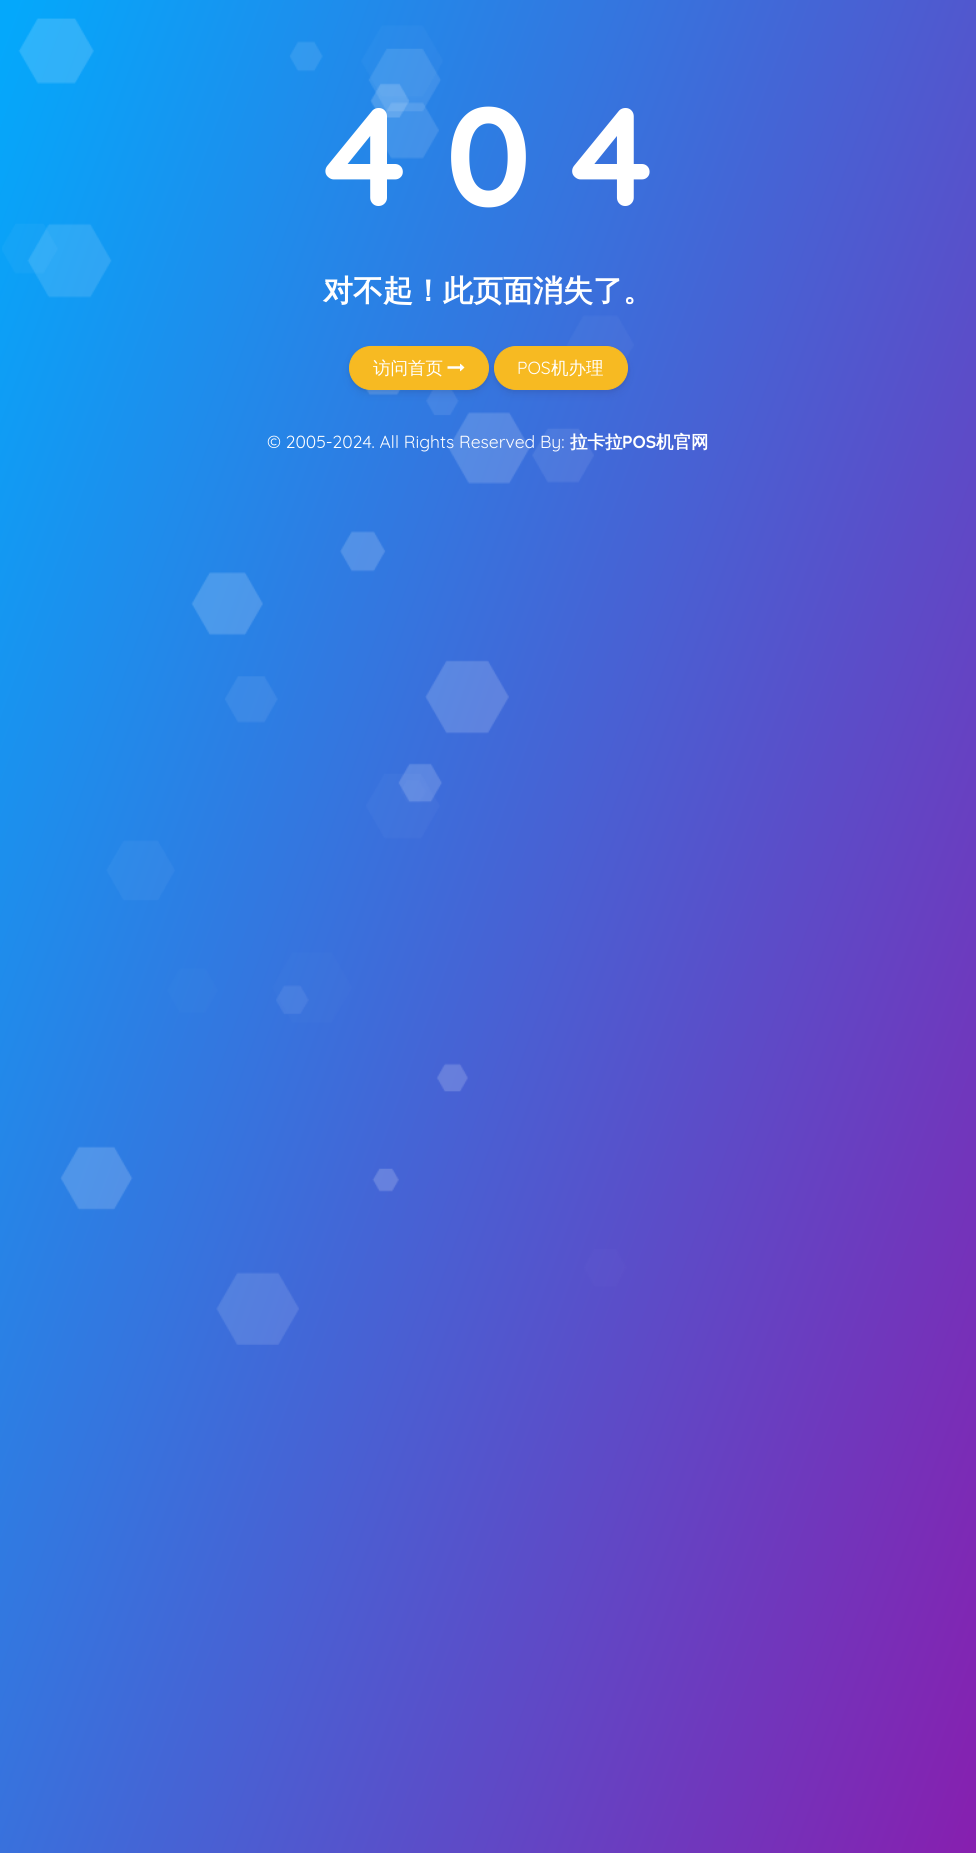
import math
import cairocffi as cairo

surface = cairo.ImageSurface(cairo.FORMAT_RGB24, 976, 1853)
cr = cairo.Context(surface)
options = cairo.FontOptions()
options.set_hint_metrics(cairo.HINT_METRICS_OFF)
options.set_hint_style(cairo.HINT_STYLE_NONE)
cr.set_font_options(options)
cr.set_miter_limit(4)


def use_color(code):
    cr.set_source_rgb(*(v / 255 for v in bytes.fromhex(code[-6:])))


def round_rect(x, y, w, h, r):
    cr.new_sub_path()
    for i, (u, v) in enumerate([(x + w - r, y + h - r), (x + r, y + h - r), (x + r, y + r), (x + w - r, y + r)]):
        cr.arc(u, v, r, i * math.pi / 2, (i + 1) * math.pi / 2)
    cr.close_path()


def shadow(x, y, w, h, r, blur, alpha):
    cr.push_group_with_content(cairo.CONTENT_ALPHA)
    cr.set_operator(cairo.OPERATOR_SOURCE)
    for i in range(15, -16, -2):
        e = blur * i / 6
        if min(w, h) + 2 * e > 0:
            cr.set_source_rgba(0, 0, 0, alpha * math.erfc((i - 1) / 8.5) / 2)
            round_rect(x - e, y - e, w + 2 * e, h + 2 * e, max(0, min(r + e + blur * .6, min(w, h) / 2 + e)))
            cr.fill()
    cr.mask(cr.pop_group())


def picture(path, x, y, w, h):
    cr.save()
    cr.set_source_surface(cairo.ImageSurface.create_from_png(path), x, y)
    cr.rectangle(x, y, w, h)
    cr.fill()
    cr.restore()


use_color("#ffffff")
cr.paint()
gradient = cairo.LinearGradient(-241, 662, 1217, 1192)
gradient.add_color_stop_rgba(0.01, 0.016, 0.659, 0.984, 1)
gradient.add_color_stop_rgba(1, 0.529, 0.122, 0.686, 1)
cr.set_source(gradient)
cr.rectangle(0, 0, 976, 1853)
cr.fill()
picture("img1.png", 2, 18, 632, 1327)
cr.select_font_face("Quicksand", cairo.FONT_SLANT_NORMAL, cairo.FONT_WEIGHT_BOLD)
cr.set_font_size(140)
use_color("#ffffff")
cr.move_to(324, 206)
cr.show_text("4 0 4")
cr.select_font_face("WenQuanYi Zen Hei", cairo.FONT_SLANT_NORMAL, cairo.FONT_WEIGHT_BOLD)
cr.set_font_size(30)
cr.move_to(323, 301)
cr.show_text("对不起！此页面消失了。")
use_color("#000000")
shadow(349, 348, 140, 43, 21.5, 2, 0.08)
use_color("#32325d")
shadow(349, 351, 140, 44, 22, 4, 0.11)
use_color("#f7ba22")
round_rect(349.5, 346.5, 139, 43, 21.5)
cr.fill_preserve()
cr.set_line_width(1)
cr.stroke()
cr.select_font_face("WenQuanYi Zen Hei Medium")
cr.set_font_size(17.5)
use_color("#ffffff")
cr.move_to(373, 374)
cr.show_text("访问首页")
picture("img2.png", 447, 363, 18, 9)
use_color("#000000")
shadow(494, 348, 134, 43, 21.5, 2, 0.08)
use_color("#32325d")
shadow(494, 351, 134, 44, 22, 4, 0.11)
use_color("#f7ba22")
round_rect(494.5, 346.5, 133, 43, 21.5)
cr.fill_preserve()
cr.stroke()
cr.select_font_face("Quicksand")
use_color("#ffffff")
cr.move_to(517, 374)
cr.show_text("POS")
cr.select_font_face("WenQuanYi Zen Hei Medium")
cr.move_to(551, 374)
cr.show_text("机办理")
cr.select_font_face("Quicksand")
cr.move_to(267, 448)
cr.show_text("© 2005-2024. All Rights Reserved By:")
cr.select_font_face("WenQuanYi Zen Hei", cairo.FONT_SLANT_NORMAL, cairo.FONT_WEIGHT_BOLD)
cr.move_to(570, 448)
cr.show_text("拉卡拉")
cr.select_font_face("Quicksand", cairo.FONT_SLANT_NORMAL, cairo.FONT_WEIGHT_BOLD)
cr.move_to(622, 448)
cr.show_text("POS")
cr.select_font_face("WenQuanYi Zen Hei", cairo.FONT_SLANT_NORMAL, cairo.FONT_WEIGHT_BOLD)
cr.move_to(656, 448)
cr.show_text("机官网")
surface.write_to_png("result.png")
